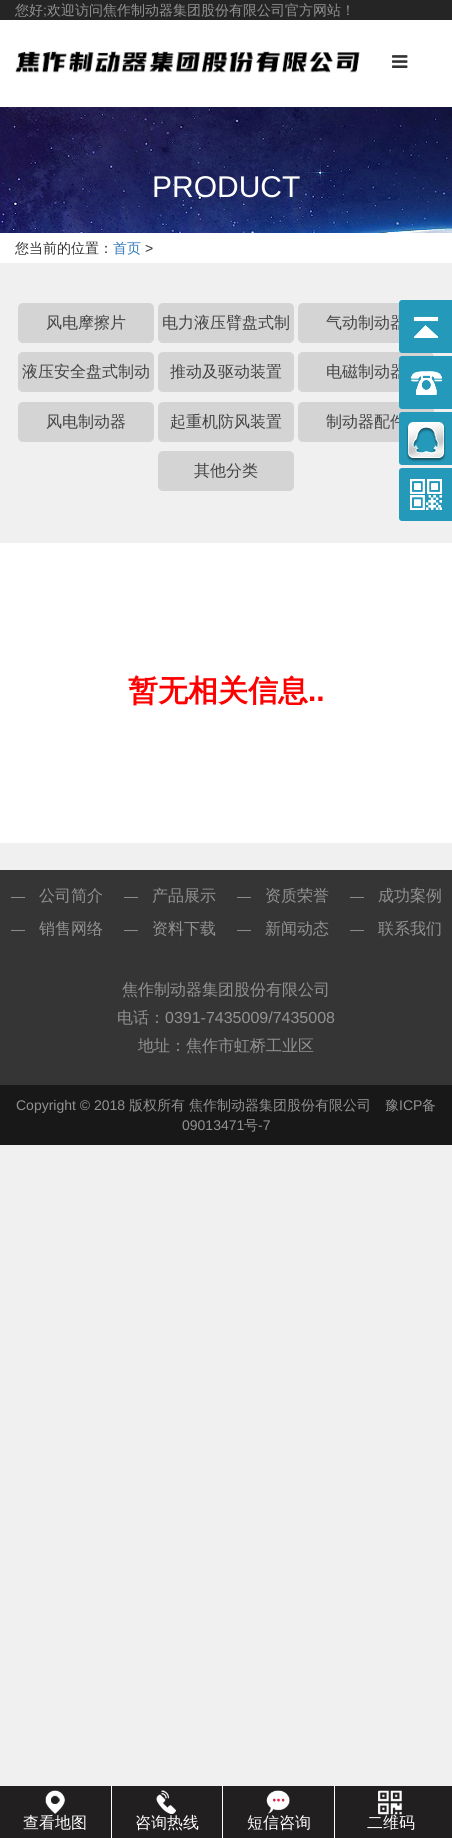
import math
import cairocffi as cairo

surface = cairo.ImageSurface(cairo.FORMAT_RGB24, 452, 1838)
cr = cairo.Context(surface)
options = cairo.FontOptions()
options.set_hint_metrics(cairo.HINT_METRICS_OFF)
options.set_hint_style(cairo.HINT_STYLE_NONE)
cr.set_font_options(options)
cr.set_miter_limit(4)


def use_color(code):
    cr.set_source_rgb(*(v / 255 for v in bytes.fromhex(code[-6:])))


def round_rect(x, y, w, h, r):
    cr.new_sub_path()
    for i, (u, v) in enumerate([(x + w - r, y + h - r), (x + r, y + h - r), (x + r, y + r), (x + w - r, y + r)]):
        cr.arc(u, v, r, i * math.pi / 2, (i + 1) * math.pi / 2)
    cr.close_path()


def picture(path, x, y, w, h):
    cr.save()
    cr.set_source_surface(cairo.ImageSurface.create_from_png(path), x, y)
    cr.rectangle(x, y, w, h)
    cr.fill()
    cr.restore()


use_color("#f0f0f0")
cr.paint()
use_color("#ffffff")
cr.rectangle(0, 20, 452, 87)
cr.fill()
use_color("#252525")
cr.rectangle(0, 0, 452, 20)
cr.fill()
cr.select_font_face("WenQuanYi Zen Hei Medium")
cr.set_font_size(14)
use_color("#919191")
cr.move_to(15, 15)
cr.show_text("您好")
cr.select_font_face("Liberation Sans")
cr.move_to(43, 15)
cr.show_text(";")
cr.select_font_face("WenQuanYi Zen Hei Medium")
cr.move_to(47, 15)
cr.show_text("欢迎访问焦作制动器集团股份有限公司官方网站！")
picture("img1.png", 15, 50, 345, 23)
picture("img2.png", 392, 55, 16, 13)
picture("img3.png", 0, 107, 452, 126)
cr.select_font_face("Liberation Sans")
cr.set_font_size(30)
use_color("#ffffff")
cr.move_to(152, 197)
cr.show_text("PRODUCT")
cr.rectangle(0, 233, 452, 30)
cr.fill()
cr.select_font_face("WenQuanYi Zen Hei Medium")
cr.set_font_size(14)
use_color("#333333")
cr.move_to(15, 253)
cr.show_text("您当前的位置：")
use_color("#337ab7")
cr.move_to(113, 253)
cr.show_text("首页")
cr.select_font_face("Liberation Sans")
use_color("#333333")
cr.move_to(145, 253)
cr.show_text(">")
use_color("#d4d4d4")
round_rect(18, 303, 136, 40, 5)
cr.fill()
cr.select_font_face("WenQuanYi Zen Hei Medium")
cr.set_font_size(16)
use_color("#444444")
cr.move_to(46, 328)
cr.show_text("风电摩擦片")
use_color("#d4d4d4")
round_rect(158, 303, 136, 40, 5)
cr.fill()
use_color("#444444")
cr.move_to(162, 328)
cr.show_text("电力液压臂盘式制")
use_color("#d4d4d4")
round_rect(298, 303, 136, 40, 5)
cr.fill()
use_color("#444444")
cr.move_to(326, 328)
cr.show_text("气动制动器")
use_color("#d4d4d4")
round_rect(18, 352, 136, 40, 5)
cr.fill()
use_color("#444444")
cr.move_to(22, 377)
cr.show_text("液压安全盘式制动")
use_color("#d4d4d4")
round_rect(158, 352, 136, 40, 5)
cr.fill()
use_color("#444444")
cr.move_to(170, 377)
cr.show_text("推动及驱动装置")
use_color("#d4d4d4")
round_rect(298, 352, 136, 40, 5)
cr.fill()
use_color("#444444")
cr.move_to(326, 377)
cr.show_text("电磁制动器")
use_color("#d4d4d4")
round_rect(18, 402, 136, 40, 5)
cr.fill()
use_color("#444444")
cr.move_to(46, 427)
cr.show_text("风电制动器")
use_color("#d4d4d4")
round_rect(158, 402, 136, 40, 5)
cr.fill()
use_color("#444444")
cr.move_to(170, 427)
cr.show_text("起重机防风装置")
use_color("#d4d4d4")
round_rect(298, 402, 136, 40, 5)
cr.fill()
use_color("#444444")
cr.move_to(326, 427)
cr.show_text("制动器配件")
use_color("#d4d4d4")
round_rect(158, 451, 136, 40, 5)
cr.fill()
use_color("#444444")
cr.move_to(194, 476)
cr.show_text("其他分类")
use_color("#2599ba")
round_rect(399, 300, 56, 53, 3)
cr.fill()
picture("img4.png", 413, 316, 26, 22)
round_rect(399, 356, 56, 53, 3)
cr.fill()
picture("img5.png", 411, 371, 31, 24)
round_rect(399, 412, 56, 53, 3)
cr.fill()
picture("img6.png", 406, 422, 40, 40)
round_rect(399, 468, 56, 53, 3)
cr.fill()
picture("img7.png", 410, 479, 32, 31)
use_color("#ffffff")
cr.rectangle(0, 543, 452, 300)
cr.fill()
cr.select_font_face("WenQuanYi Zen Hei", cairo.FONT_SLANT_NORMAL, cairo.FONT_WEIGHT_BOLD)
cr.set_font_size(30)
use_color("#ff0000")
cr.move_to(128, 701)
cr.show_text("暂无相关信息")
cr.select_font_face("Liberation Sans", cairo.FONT_SLANT_NORMAL, cairo.FONT_WEIGHT_BOLD)
cr.move_to(308, 701)
cr.show_text("..")
use_color("#353535")
cr.rectangle(0, 870, 452, 215)
cr.fill()
cr.select_font_face("Liberation Sans")
cr.set_font_size(14)
use_color("#919191")
cr.move_to(11, 901)
cr.show_text("—")
cr.select_font_face("WenQuanYi Zen Hei Medium")
cr.set_font_size(16)
cr.move_to(39, 901)
cr.show_text("公司简介")
cr.select_font_face("Liberation Sans")
cr.set_font_size(14)
cr.move_to(124, 901)
cr.show_text("—")
cr.select_font_face("WenQuanYi Zen Hei Medium")
cr.set_font_size(16)
cr.move_to(152, 901)
cr.show_text("产品展示")
cr.select_font_face("Liberation Sans")
cr.set_font_size(14)
cr.move_to(237, 901)
cr.show_text("—")
cr.select_font_face("WenQuanYi Zen Hei Medium")
cr.set_font_size(16)
cr.move_to(265, 901)
cr.show_text("资质荣誉")
cr.select_font_face("Liberation Sans")
cr.set_font_size(14)
cr.move_to(350, 901)
cr.show_text("—")
cr.select_font_face("WenQuanYi Zen Hei Medium")
cr.set_font_size(16)
cr.move_to(378, 901)
cr.show_text("成功案例")
cr.select_font_face("Liberation Sans")
cr.set_font_size(14)
cr.move_to(11, 934)
cr.show_text("—")
cr.select_font_face("WenQuanYi Zen Hei Medium")
cr.set_font_size(16)
cr.move_to(39, 934)
cr.show_text("销售网络")
cr.select_font_face("Liberation Sans")
cr.set_font_size(14)
cr.move_to(124, 934)
cr.show_text("—")
cr.select_font_face("WenQuanYi Zen Hei Medium")
cr.set_font_size(16)
cr.move_to(152, 934)
cr.show_text("资料下载")
cr.select_font_face("Liberation Sans")
cr.set_font_size(14)
cr.move_to(237, 934)
cr.show_text("—")
cr.select_font_face("WenQuanYi Zen Hei Medium")
cr.set_font_size(16)
cr.move_to(265, 934)
cr.show_text("新闻动态")
cr.select_font_face("Liberation Sans")
cr.set_font_size(14)
cr.move_to(350, 934)
cr.show_text("—")
cr.select_font_face("WenQuanYi Zen Hei Medium")
cr.set_font_size(16)
cr.move_to(378, 934)
cr.show_text("联系我们")
cr.move_to(122, 995)
cr.show_text("焦作制动器集团股份有限公司")
cr.move_to(117, 1023)
cr.show_text("电话：")
cr.select_font_face("Liberation Sans")
cr.move_to(165, 1023)
cr.show_text("0391-7435009/7435008")
cr.select_font_face("WenQuanYi Zen Hei Medium")
cr.move_to(138, 1051)
cr.show_text("地址：焦作市虹桥工业区")
use_color("#181818")
cr.rectangle(0, 1085, 452, 60)
cr.fill()
cr.select_font_face("Liberation Sans")
cr.set_font_size(14)
use_color("#919191")
cr.move_to(16, 1110)
cr.show_text("Copyright © 2018")
cr.select_font_face("WenQuanYi Zen Hei Medium")
cr.move_to(129, 1110)
cr.show_text("版权所有")
cr.move_to(189, 1110)
cr.show_text("焦作制动器集团股份有限公司")
cr.move_to(385, 1110)
cr.show_text("豫")
cr.select_font_face("Liberation Sans")
cr.move_to(399, 1110)
cr.show_text("ICP")
cr.select_font_face("WenQuanYi Zen Hei Medium")
cr.move_to(422, 1110)
cr.show_text("备")
cr.select_font_face("Liberation Sans")
cr.move_to(182, 1130)
cr.show_text("09013471")
cr.select_font_face("WenQuanYi Zen Hei Medium")
cr.move_to(244, 1130)
cr.show_text("号")
cr.select_font_face("Liberation Sans")
cr.move_to(258, 1130)
cr.show_text("-7")
use_color("#211f1f")
cr.rectangle(0, 1786, 452, 52)
cr.fill()
use_color("#ffffff")
cr.rectangle(111, 1786, 1, 52)
cr.fill()
picture("img8.png", 45, 1790, 20, 24)
cr.select_font_face("WenQuanYi Zen Hei Medium")
cr.set_font_size(16)
cr.move_to(23, 1828)
cr.show_text("查看地图")
cr.rectangle(222, 1786, 1, 52)
cr.fill()
picture("img9.png", 156, 1790, 20, 24)
cr.move_to(135, 1828)
cr.show_text("咨询热线")
cr.rectangle(334, 1786, 1, 52)
cr.fill()
picture("img10.png", 266, 1790, 24, 24)
cr.move_to(247, 1828)
cr.show_text("短信咨询")
picture("img11.png", 378, 1790, 24, 25)
cr.move_to(367, 1828)
cr.show_text("二维码")
surface.write_to_png("result.png")
